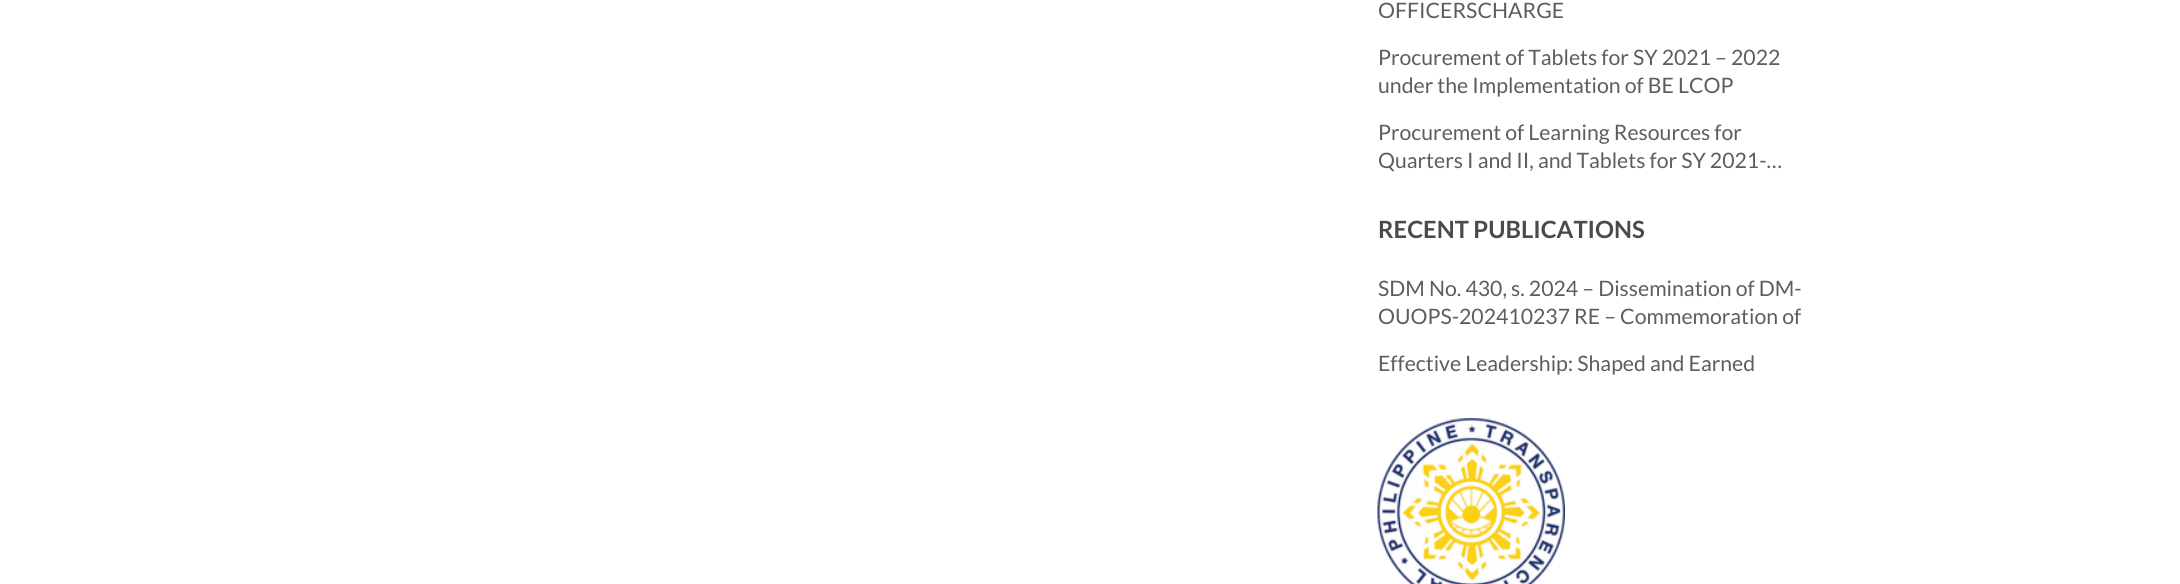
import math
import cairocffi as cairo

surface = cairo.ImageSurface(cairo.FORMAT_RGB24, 2180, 584)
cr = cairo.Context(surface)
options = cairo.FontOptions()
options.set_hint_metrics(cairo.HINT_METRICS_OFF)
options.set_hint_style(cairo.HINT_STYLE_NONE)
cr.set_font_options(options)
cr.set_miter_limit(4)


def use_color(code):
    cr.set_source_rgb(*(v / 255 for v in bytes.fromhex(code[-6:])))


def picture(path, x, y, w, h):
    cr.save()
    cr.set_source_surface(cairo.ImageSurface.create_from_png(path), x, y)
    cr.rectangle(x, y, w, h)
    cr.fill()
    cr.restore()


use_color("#ffffff")
cr.paint()
cr.select_font_face("Lato")
cr.set_font_size(21.25)
use_color("#5d5d5d")
cr.move_to(1378, 18)
cr.show_text("OFFICERSCHARGE")
cr.move_to(1378, 65)
cr.show_text("Procurement of Tablets for SY 2021 – 2022")
cr.move_to(1378, 93)
cr.show_text("under the Implementation of BE LCOP")
cr.move_to(1378, 140)
cr.show_text("Procurement of Learning Resources for")
cr.move_to(1378, 168)
cr.show_text("Quarters I and II, and Tablets for SY 2021-…")
cr.select_font_face("Lato", cairo.FONT_SLANT_NORMAL, cairo.FONT_WEIGHT_BOLD)
cr.set_font_size(23.75)
use_color("#474b4e")
cr.move_to(1378, 238)
cr.show_text("RECENT PUBLICATIONS")
cr.select_font_face("Lato")
cr.set_font_size(21.25)
use_color("#5d5d5d")
cr.move_to(1378, 296)
cr.show_text("SDM No. 430, s. 2024 – Dissemination of DM-")
cr.move_to(1378, 324)
cr.show_text("OUOPS-202410237 RE – Commemoration of")
cr.move_to(1378, 371)
cr.show_text("Effective Leadership: Shaped and Earned")
picture("img1.png", 1377, 418, 188, 166)
surface.write_to_png("result.png")
